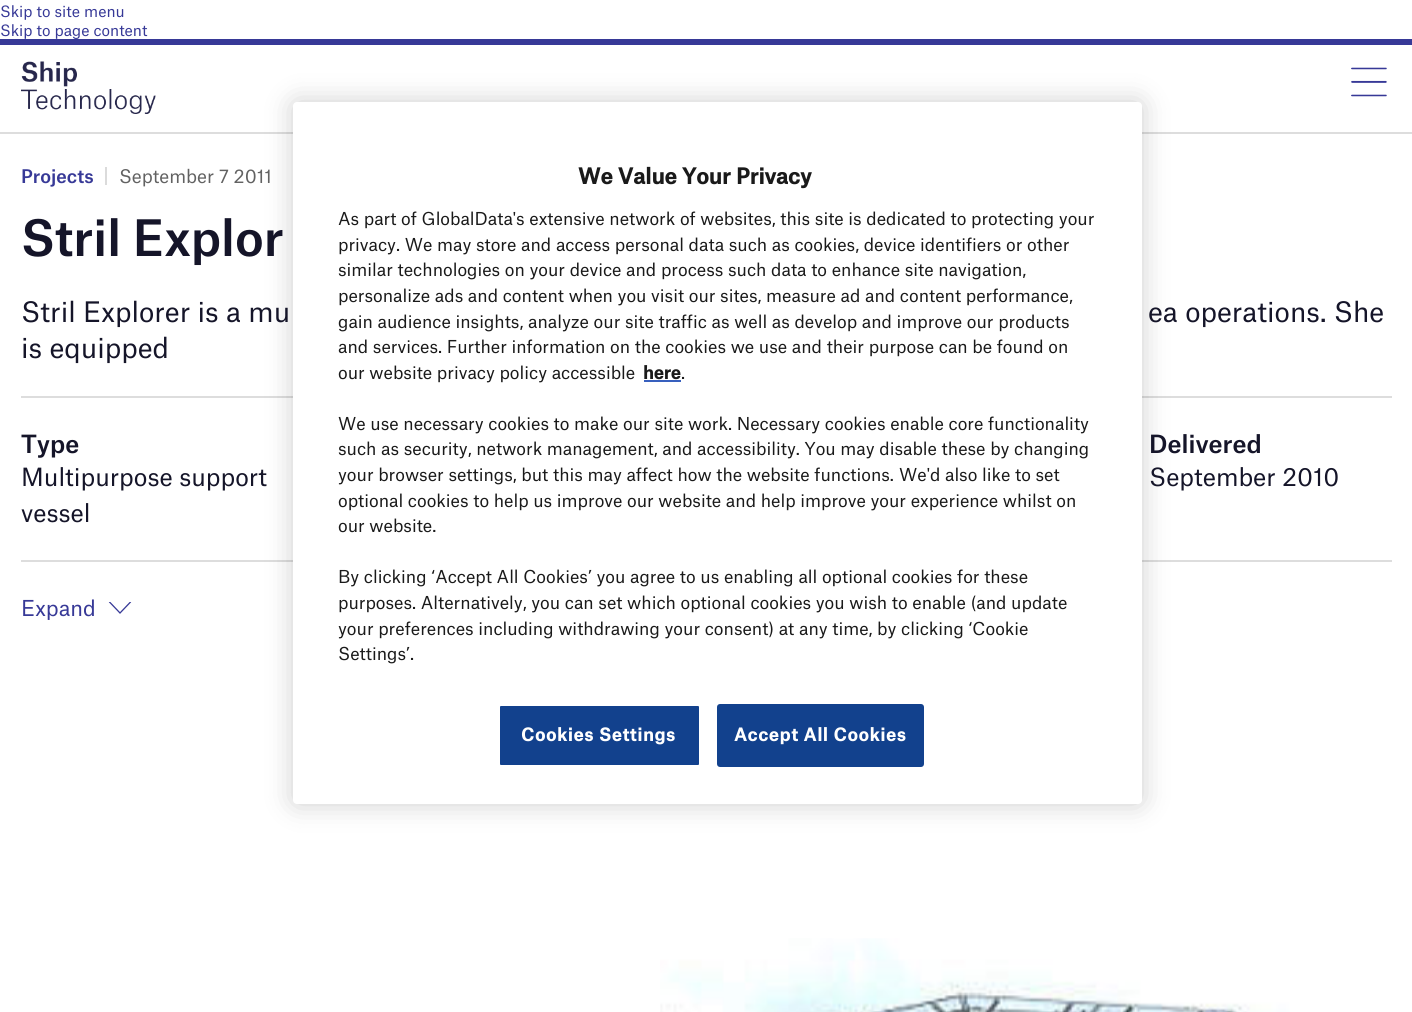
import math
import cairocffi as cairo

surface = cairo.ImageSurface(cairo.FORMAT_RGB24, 1412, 1012)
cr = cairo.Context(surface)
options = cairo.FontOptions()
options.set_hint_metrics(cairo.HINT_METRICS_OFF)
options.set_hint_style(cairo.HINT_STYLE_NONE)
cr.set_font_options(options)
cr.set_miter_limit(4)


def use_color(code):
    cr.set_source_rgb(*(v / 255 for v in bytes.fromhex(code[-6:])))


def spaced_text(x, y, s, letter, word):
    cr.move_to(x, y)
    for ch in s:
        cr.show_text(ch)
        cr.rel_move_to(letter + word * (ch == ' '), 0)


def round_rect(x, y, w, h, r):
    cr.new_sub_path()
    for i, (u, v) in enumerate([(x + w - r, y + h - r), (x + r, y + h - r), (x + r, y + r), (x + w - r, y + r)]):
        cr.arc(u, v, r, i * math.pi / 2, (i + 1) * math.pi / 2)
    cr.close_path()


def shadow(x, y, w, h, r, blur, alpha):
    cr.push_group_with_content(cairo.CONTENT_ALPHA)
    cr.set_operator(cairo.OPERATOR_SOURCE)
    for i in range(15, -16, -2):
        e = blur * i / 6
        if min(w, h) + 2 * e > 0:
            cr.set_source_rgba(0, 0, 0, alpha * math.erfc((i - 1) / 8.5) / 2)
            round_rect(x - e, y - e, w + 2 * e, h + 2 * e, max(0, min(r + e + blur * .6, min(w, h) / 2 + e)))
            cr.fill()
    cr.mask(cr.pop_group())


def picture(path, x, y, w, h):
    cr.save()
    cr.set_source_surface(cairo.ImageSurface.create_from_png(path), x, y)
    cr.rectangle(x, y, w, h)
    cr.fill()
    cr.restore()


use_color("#ffffff")
cr.paint()
cr.select_font_face("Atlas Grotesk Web")
cr.set_font_size(15)
use_color("#373997")
cr.move_to(0, 17)
cr.show_text("Skip to site menu")
cr.move_to(0, 36)
cr.show_text("Skip to page content")
cr.rectangle(0, 39, 1412, 6)
cr.fill()
use_color("#dddddd")
cr.rectangle(0, 132, 1412, 2)
cr.fill()
picture("img1.png", 21, 61, 135, 53)
picture("img2.png", 1351, 67, 36, 30)
cr.rectangle(21, 396, 1371, 2)
cr.fill()
cr.rectangle(21, 560, 1371, 2)
cr.fill()
use_color("#000000")
shadow(293, 102, 849, 702, 4, 13.5, 0.2)
use_color("#ffffff")
round_rect(293, 102, 849, 702, 4)
cr.fill()
cr.select_font_face("Atlas Grotesk Web", cairo.FONT_SLANT_NORMAL, cairo.FONT_WEIGHT_BOLD)
cr.set_font_size(21)
use_color("#1a1a1a")
cr.move_to(578, 184)
cr.show_text("We Value Your Privacy")
cr.select_font_face("Atlas Grotesk Web")
cr.set_font_size(17.05)
cr.move_to(338, 225)
cr.show_text("As part of GlobalData's extensive network of websites, this site is dedicated to protecting your")
cr.move_to(338, 251)
cr.show_text("privacy. We may store and access personal data such as cookies, device identifiers or other")
cr.move_to(338, 276)
cr.show_text("similar technologies on your device and process such data to enhance site navigation,")
cr.move_to(338, 302)
cr.show_text("personalize ads and content when you visit our sites, measure ad and content performance,")
cr.move_to(338, 328)
cr.show_text("gain audience insights, analyze our site traffic as well as develop and improve our products")
cr.move_to(338, 353)
cr.show_text("and services. Further information on the cookies we use and their purpose can be found on")
cr.move_to(338, 379)
cr.show_text("our website privacy policy accessible")
cr.select_font_face("Atlas Grotesk Web", cairo.FONT_SLANT_NORMAL, cairo.FONT_WEIGHT_BOLD)
cr.move_to(643, 379)
cr.show_text("here")
use_color("#3860be")
cr.rectangle(644, 380, 37, 2)
cr.fill()
cr.select_font_face("Atlas Grotesk Web")
use_color("#1a1a1a")
cr.move_to(681, 379)
cr.show_text(".")
cr.move_to(338, 430)
cr.show_text("We use necessary cookies to make our site work. Necessary cookies enable core functionality")
cr.move_to(338, 455)
cr.show_text("such as security, network management, and accessibility. You may disable these by changing")
cr.move_to(338, 481)
cr.show_text("your browser settings, but this may affect how the website functions.")
cr.move_to(899, 481)
cr.show_text("We'd also like to set")
cr.move_to(338, 507)
cr.show_text("optional cookies to help us improve our website and help improve your experience whilst on")
cr.move_to(338, 532)
cr.show_text("our website.")
cr.move_to(338, 583)
cr.show_text("By clicking ‘Accept All Cookies’ you agree to us enabling all optional cookies for these")
cr.move_to(338, 609)
cr.show_text("purposes. Alternatively, you can set which optional cookies you wish to enable (and update")
cr.move_to(338, 635)
cr.show_text("your preferences including withdrawing your consent) at any time, by clicking ‘Cookie")
cr.move_to(338, 660)
cr.show_text("Settings’.")
use_color("#12418d")
round_rect(499, 705, 201, 61, 2)
cr.fill_preserve()
use_color("#ffffff")
cr.stroke()
cr.select_font_face("Atlas Grotesk Web", cairo.FONT_SLANT_NORMAL, cairo.FONT_WEIGHT_BOLD)
spaced_text(521, 741, "Cookies Settings", 0.8, 0)
use_color("#12418d")
round_rect(718, 705, 205, 61, 2)
cr.fill_preserve()
cr.stroke()
use_color("#ffffff")
spaced_text(734, 741, "Accept All Cookies", 0.8, 0)
cr.select_font_face("Atlas Grotesk Web Medium")
cr.set_font_size(18)
use_color("#373997")
cr.move_to(21, 183)
cr.show_text("Projects")
use_color("#dbdbdb")
cr.rectangle(105, 167, 2, 18)
cr.fill()
cr.select_font_face("Atlas Grotesk Web")
use_color("#626262")
cr.move_to(119, 183)
cr.show_text("September 7 2011")
cr.select_font_face("Atlas Grotesk Web Medium")
cr.set_font_size(48)
use_color("#151529")
cr.move_to(21, 256)
cr.show_text("Stril Explor")
cr.select_font_face("Atlas Grotesk Web")
cr.set_font_size(27)
cr.move_to(21, 322)
cr.show_text("Stril Explorer is a mu")
cr.move_to(1148, 322)
cr.show_text("ea operations. She")
cr.move_to(21, 358)
cr.show_text("is equipped")
cr.select_font_face("Atlas Grotesk Web Medium")
cr.set_font_size(24)
cr.move_to(21, 453)
cr.show_text("Type")
cr.select_font_face("Atlas Grotesk Web")
cr.move_to(21, 486)
cr.show_text("Multipurpose support")
cr.move_to(21, 522)
cr.show_text("vessel")
cr.select_font_face("Atlas Grotesk Web Medium")
cr.move_to(1149, 453)
cr.show_text("Delivered")
cr.select_font_face("Atlas Grotesk Web")
cr.move_to(1149, 486)
cr.show_text("September 2010")
cr.set_font_size(21)
use_color("#373997")
cr.move_to(21, 616)
cr.show_text("Expand")
cr.save()
cr.rectangle(108, 602, 24, 13)
cr.clip()
cr.new_path()
cr.move_to(130.5, 602)
cr.line_to(120, 613)
cr.line_to(109.5, 602)
cr.set_line_width(1.3)
cr.set_line_cap(cairo.LINE_CAP_ROUND)
cr.stroke()
cr.restore()
picture("img3.png", 660, 938, 630, 74)
surface.write_to_png("result.png")
